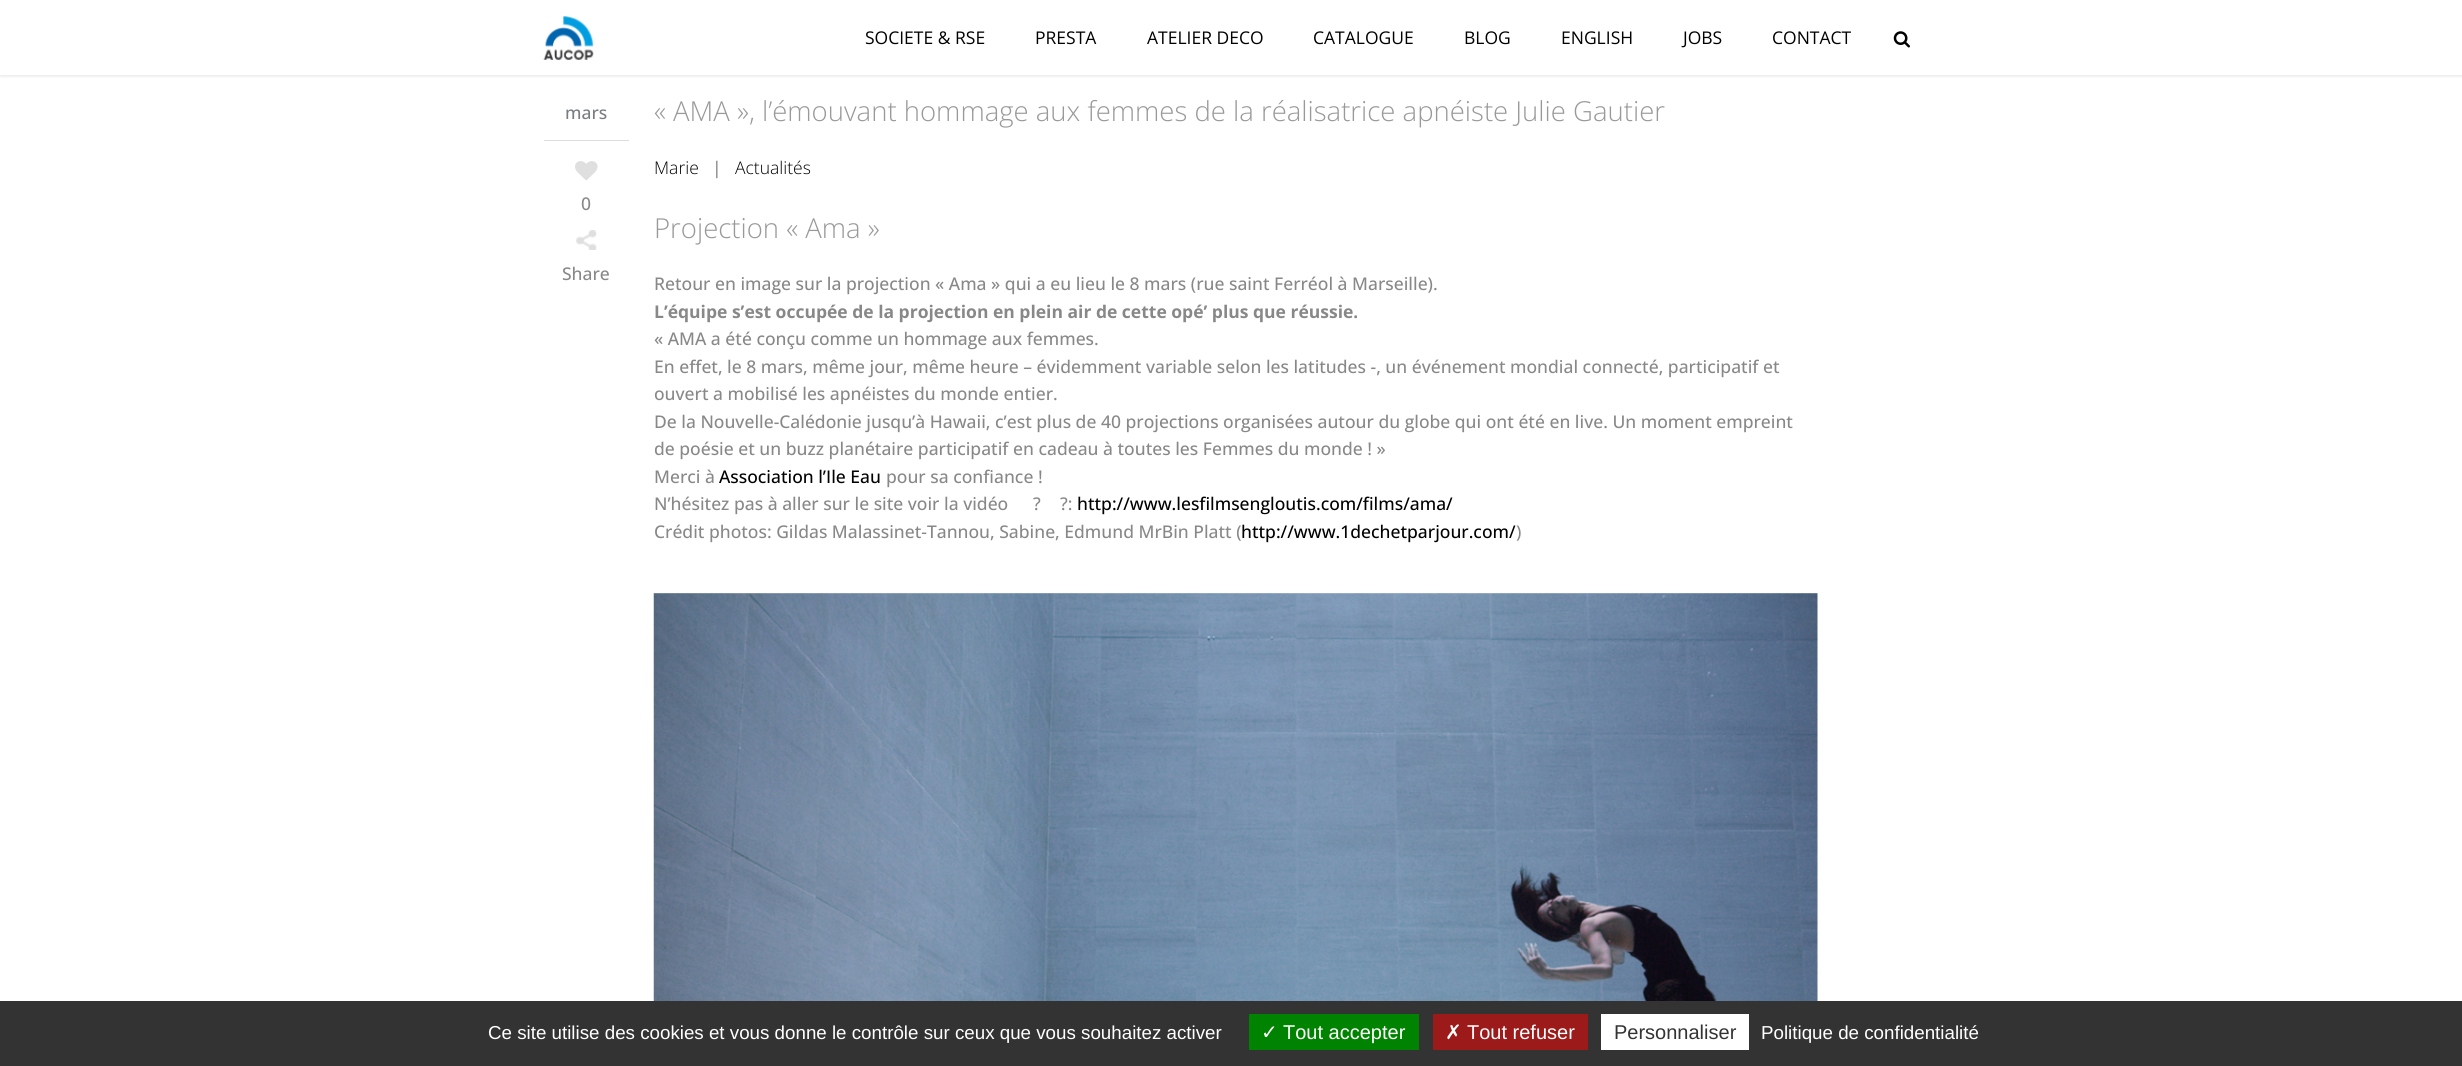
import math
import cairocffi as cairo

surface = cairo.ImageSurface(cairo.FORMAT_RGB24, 2462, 1066)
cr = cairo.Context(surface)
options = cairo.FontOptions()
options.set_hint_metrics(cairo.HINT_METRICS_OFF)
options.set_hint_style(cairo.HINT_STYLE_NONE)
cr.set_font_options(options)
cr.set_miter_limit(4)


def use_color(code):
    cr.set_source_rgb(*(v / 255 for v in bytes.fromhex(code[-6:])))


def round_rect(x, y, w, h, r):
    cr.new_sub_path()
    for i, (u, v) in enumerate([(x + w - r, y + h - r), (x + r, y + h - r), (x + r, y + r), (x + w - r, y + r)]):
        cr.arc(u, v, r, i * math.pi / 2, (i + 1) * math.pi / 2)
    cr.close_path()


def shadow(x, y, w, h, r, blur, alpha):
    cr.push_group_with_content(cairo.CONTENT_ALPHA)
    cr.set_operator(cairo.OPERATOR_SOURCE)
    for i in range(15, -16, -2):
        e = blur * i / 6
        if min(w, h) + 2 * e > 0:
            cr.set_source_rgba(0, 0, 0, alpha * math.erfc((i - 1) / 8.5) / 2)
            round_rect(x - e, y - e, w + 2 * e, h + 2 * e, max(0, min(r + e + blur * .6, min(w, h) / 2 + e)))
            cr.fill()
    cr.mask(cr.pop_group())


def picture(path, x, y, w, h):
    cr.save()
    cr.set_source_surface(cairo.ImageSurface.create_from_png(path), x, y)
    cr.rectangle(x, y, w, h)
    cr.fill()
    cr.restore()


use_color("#ffffff")
cr.paint()
cr.save()
cr.rectangle(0, 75, 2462, 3)
cr.clip()
use_color("#000000")
shadow(0, 1, 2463, 75, 0, 2, 0.11)
cr.restore()
picture("img1.png", 543, 16, 51, 44)
cr.select_font_face("Open Sans")
cr.set_font_size(17.5)
use_color("#000000")
cr.move_to(865, 44)
cr.show_text("SOCIETE & RSE")
cr.move_to(1035, 44)
cr.show_text("PRESTA")
cr.move_to(1147, 44)
cr.show_text("ATELIER DECO")
cr.move_to(1313, 44)
cr.show_text("CATALOGUE")
cr.move_to(1464, 44)
cr.show_text("BLOG")
cr.move_to(1561, 44)
cr.show_text("ENGLISH")
cr.move_to(1683, 44)
cr.show_text("JOBS")
cr.move_to(1772, 44)
cr.show_text("CONTACT")
picture("img2.png", 1893, 31, 17, 17)
use_color("#dddddd")
cr.rectangle(544, 140, 85, 1)
cr.fill()
cr.select_font_face("Open Sans Medium")
use_color("#787d81")
cr.move_to(565, 119)
cr.show_text("mars")
picture("img3.png", 575, 161, 23, 20)
use_color("#888888")
cr.move_to(581, 210)
cr.show_text("0")
picture("img4.png", 576, 230, 21, 20)
cr.move_to(562, 280)
cr.show_text("Share")
cr.select_font_face("Open Sans Light")
cr.set_font_size(27.5)
use_color("#999999")
cr.move_to(654, 121)
cr.show_text("« AMA », l’émouvant hommage aux femmes de la réalisatrice apnéiste Julie Gautier")
cr.set_font_size(17.5)
use_color("#000000")
cr.move_to(654, 174)
cr.show_text("Marie")
cr.select_font_face("Open Sans Medium")
use_color("#888888")
cr.move_to(712, 174)
cr.show_text("|")
cr.select_font_face("Open Sans Light")
use_color("#000000")
cr.move_to(735, 174)
cr.show_text("Actualités")
cr.set_font_size(27.5)
use_color("#999999")
cr.move_to(654, 238)
cr.show_text("Projection « Ama »")
cr.select_font_face("Open Sans Medium")
cr.set_font_size(17.5)
use_color("#888888")
cr.move_to(654, 290)
cr.show_text("Retour en image sur la projection « Ama » qui a eu lieu le 8 mars (rue saint Ferréol à Marseille).")
cr.select_font_face("Open Sans", cairo.FONT_SLANT_NORMAL, cairo.FONT_WEIGHT_BOLD)
cr.move_to(654, 318)
cr.show_text("L’équipe s’est occupée de la projection en plein air de cette opé’ plus que réussie.")
cr.select_font_face("Open Sans Medium")
cr.move_to(654, 345)
cr.show_text("« AMA a été conçu comme un hommage aux femmes.")
cr.move_to(654, 373)
cr.show_text("En effet, le 8 mars, même jour, même heure – évidemment variable selon les latitudes -, un événement mondial connecté, participatif et")
cr.move_to(654, 400)
cr.show_text("ouvert a mobilisé les apnéistes du monde entier.")
cr.move_to(654, 428)
cr.show_text("De la Nouvelle-Calédonie jusqu’à Hawaii, c’est plus de 40 projections organisées autour du globe qui ont été en live. Un moment empreint")
cr.move_to(654, 455)
cr.show_text("de poésie et un buzz planétaire participatif en cadeau à toutes les Femmes du monde ! »")
cr.move_to(654, 483)
cr.show_text("Merci à")
use_color("#000000")
cr.move_to(719, 483)
cr.show_text("Association l’Ile Eau")
use_color("#888888")
cr.move_to(886, 483)
cr.show_text("pour sa confiance !")
cr.move_to(654, 510)
cr.show_text("N’hésitez pas à aller sur le site voir la vidéo")
cr.move_to(1033, 510)
cr.show_text("?")
cr.move_to(1060, 510)
cr.show_text("?:")
use_color("#000000")
cr.move_to(1077, 510)
cr.show_text("http://www.lesfilmsengloutis.com/films/ama/")
use_color("#888888")
cr.move_to(654, 538)
cr.show_text("Crédit photos: Gildas Malassinet-Tannou, Sabine, Edmund MrBin Platt (")
use_color("#000000")
cr.move_to(1241, 538)
cr.show_text("http://www.1dechetparjour.com/")
use_color("#888888")
cr.move_to(1516, 538)
cr.show_text(")")
picture("img5.png", 653, 593, 1165, 408)
use_color("#333333")
cr.rectangle(0, 1001, 2462, 65)
cr.fill()
cr.select_font_face("Liberation Sans")
cr.set_font_size(18.75)
use_color("#ffffff")
cr.move_to(488, 1039)
cr.show_text("Ce site utilise des cookies et vous donne le contrôle sur ceux que vous souhaitez activer")
use_color("#008300")
cr.rectangle(1249, 1014, 170, 36)
cr.fill()
cr.select_font_face("DejaVu Sans")
cr.set_font_size(20)
use_color("#ffffff")
cr.move_to(1261, 1039)
cr.show_text("✓")
cr.select_font_face("Liberation Sans")
cr.move_to(1283, 1039)
cr.show_text("Tout accepter")
use_color("#9c1a1a")
cr.rectangle(1433, 1014, 155, 36)
cr.fill()
cr.select_font_face("DejaVu Sans")
use_color("#ffffff")
cr.move_to(1445, 1039)
cr.show_text("✗")
cr.select_font_face("Liberation Sans")
cr.move_to(1467, 1039)
cr.show_text("Tout refuser")
cr.rectangle(1601, 1014, 148, 36)
cr.fill()
use_color("#333333")
cr.move_to(1614, 1039)
cr.show_text("Personnaliser")
cr.set_font_size(18.75)
use_color("#ffffff")
cr.move_to(1761, 1039)
cr.show_text("Politique de confidentialité")
surface.write_to_png("result.png")
